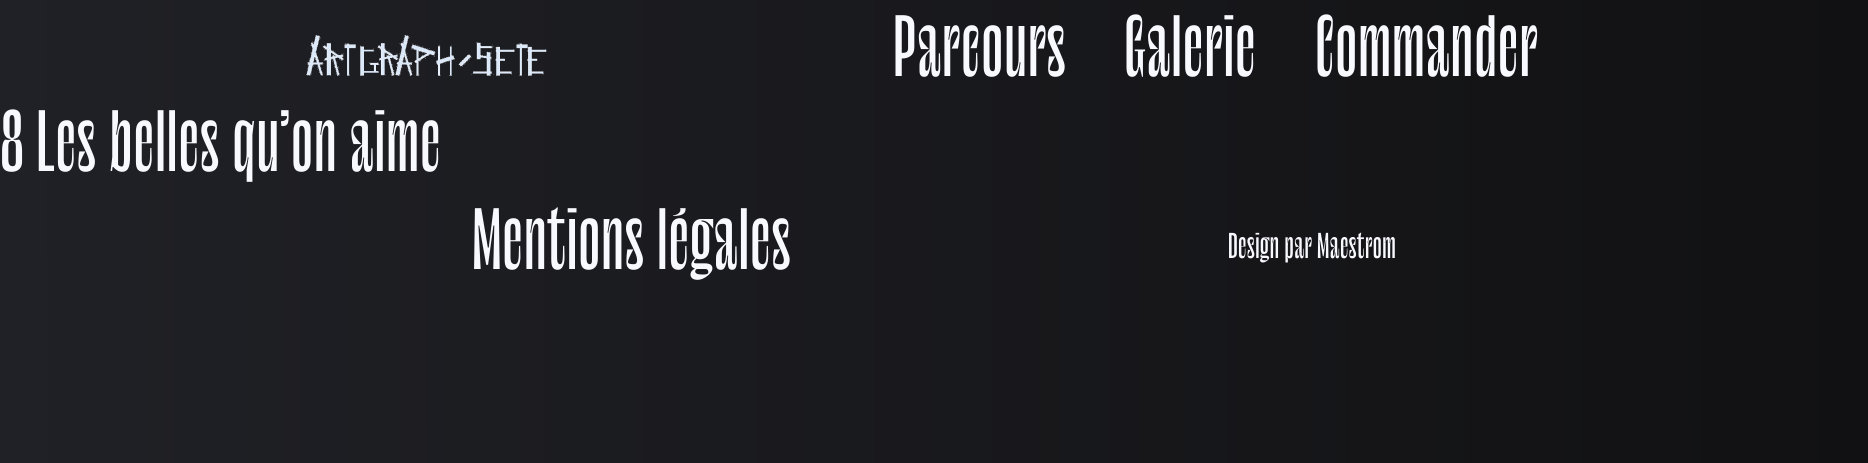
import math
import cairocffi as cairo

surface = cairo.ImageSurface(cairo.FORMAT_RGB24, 1868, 463)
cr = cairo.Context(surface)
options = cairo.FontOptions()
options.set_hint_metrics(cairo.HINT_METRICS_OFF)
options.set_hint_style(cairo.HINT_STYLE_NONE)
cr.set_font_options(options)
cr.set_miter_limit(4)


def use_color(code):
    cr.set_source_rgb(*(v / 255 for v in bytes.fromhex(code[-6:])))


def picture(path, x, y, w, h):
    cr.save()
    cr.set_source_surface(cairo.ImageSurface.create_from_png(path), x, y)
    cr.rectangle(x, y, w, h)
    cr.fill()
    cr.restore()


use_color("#ffffff")
cr.paint()
gradient = cairo.LinearGradient(0, 180, 1868, 179)
gradient.add_color_stop_rgba(0, 0.125, 0.129, 0.149, 1)
gradient.add_color_stop_rgba(1, 0.067, 0.067, 0.075, 1)
cr.set_source(gradient)
cr.rectangle(0, 0, 1868, 463)
cr.fill()
picture("img1.png", 306, 35, 241, 41)
cr.select_font_face("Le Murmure")
cr.set_font_size(75)
use_color("#f8f8ff")
cr.move_to(893, 76)
cr.show_text("Parcours")
cr.move_to(1124, 76)
cr.show_text("Galerie")
cr.move_to(1315, 76)
cr.show_text("Commander")
cr.move_to(0, 171)
cr.show_text("8 Les belles qu’on aime")
cr.move_to(472, 269)
cr.show_text("Mentions légales")
cr.set_font_size(31)
cr.move_to(1228, 258)
cr.show_text("Design par Maestrom")
surface.write_to_png("result.png")
